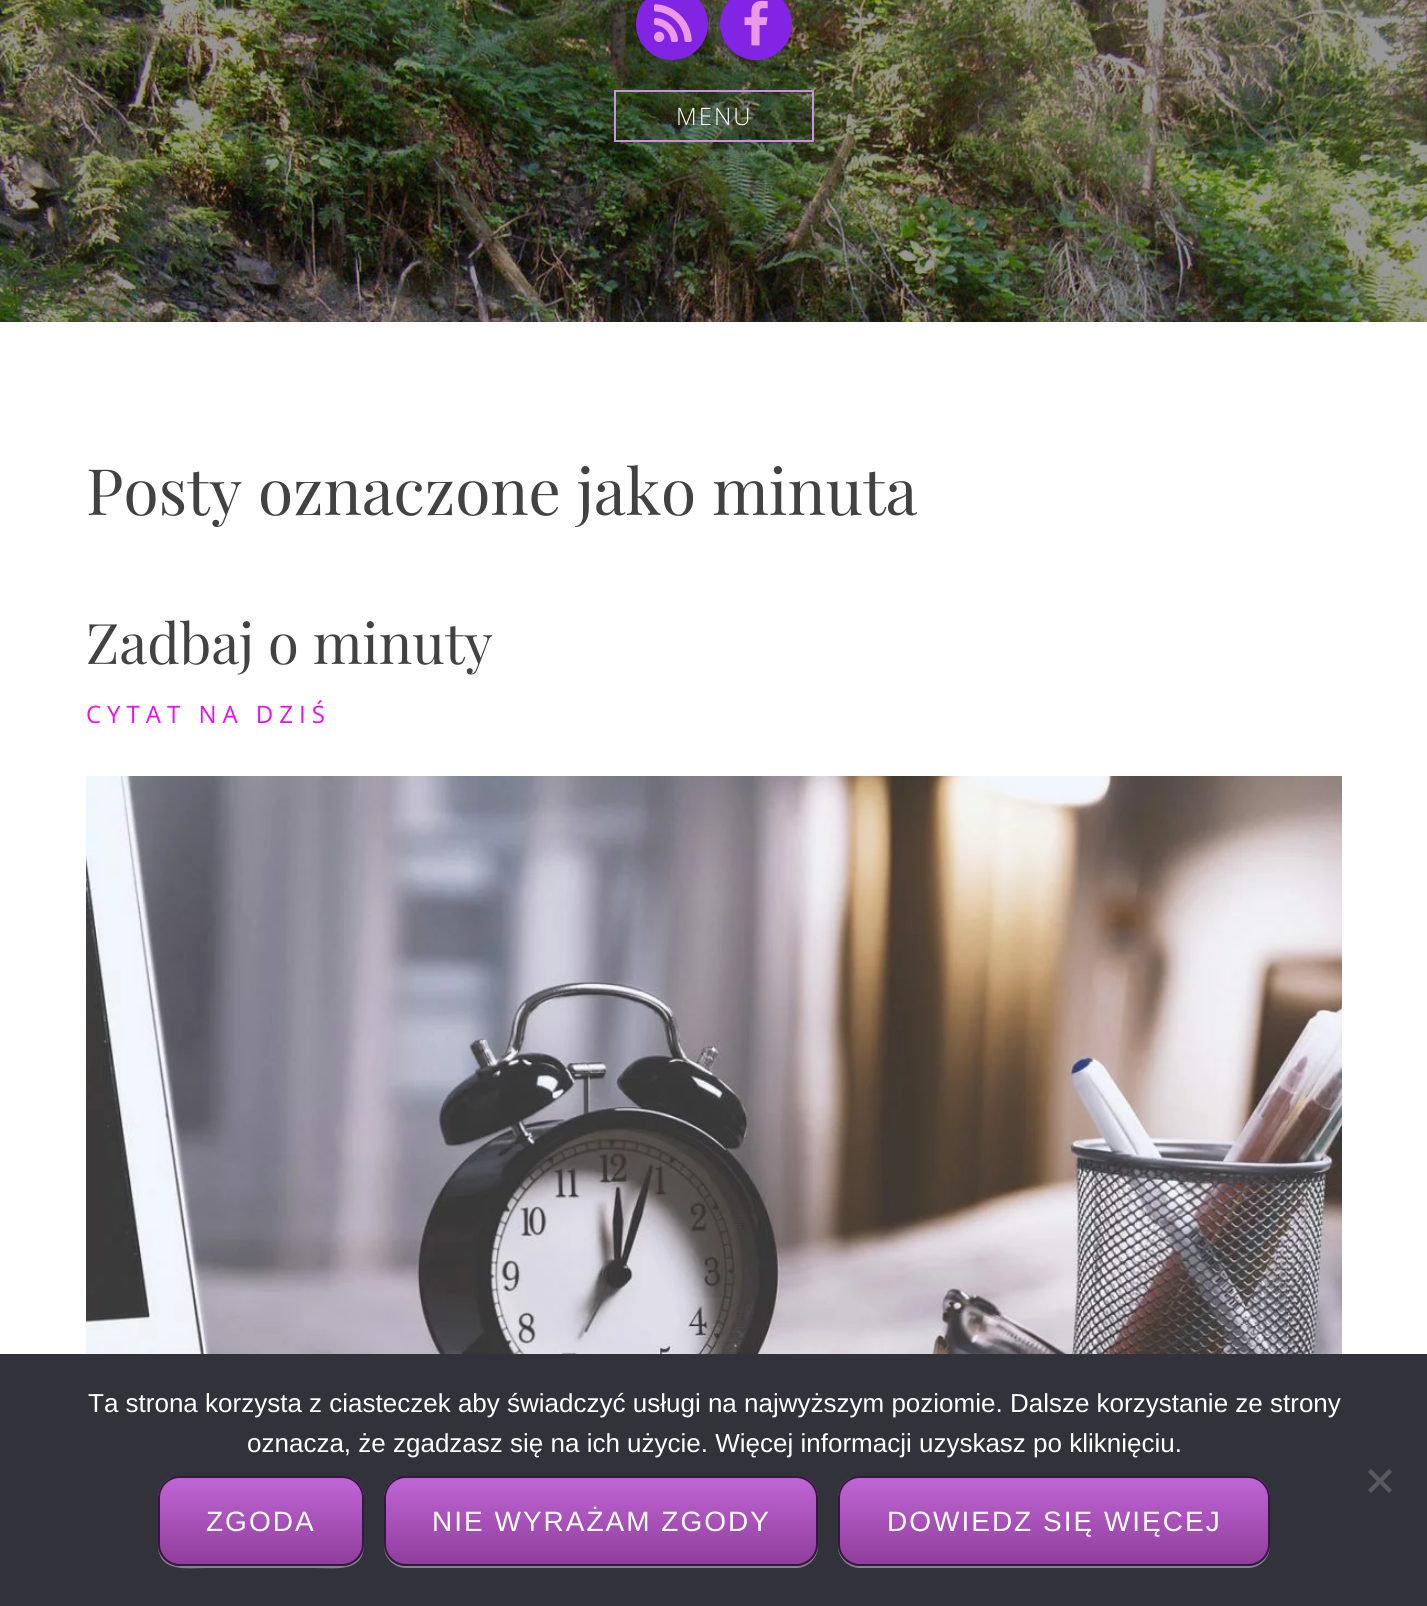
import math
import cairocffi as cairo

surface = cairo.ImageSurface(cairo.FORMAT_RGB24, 1427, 1606)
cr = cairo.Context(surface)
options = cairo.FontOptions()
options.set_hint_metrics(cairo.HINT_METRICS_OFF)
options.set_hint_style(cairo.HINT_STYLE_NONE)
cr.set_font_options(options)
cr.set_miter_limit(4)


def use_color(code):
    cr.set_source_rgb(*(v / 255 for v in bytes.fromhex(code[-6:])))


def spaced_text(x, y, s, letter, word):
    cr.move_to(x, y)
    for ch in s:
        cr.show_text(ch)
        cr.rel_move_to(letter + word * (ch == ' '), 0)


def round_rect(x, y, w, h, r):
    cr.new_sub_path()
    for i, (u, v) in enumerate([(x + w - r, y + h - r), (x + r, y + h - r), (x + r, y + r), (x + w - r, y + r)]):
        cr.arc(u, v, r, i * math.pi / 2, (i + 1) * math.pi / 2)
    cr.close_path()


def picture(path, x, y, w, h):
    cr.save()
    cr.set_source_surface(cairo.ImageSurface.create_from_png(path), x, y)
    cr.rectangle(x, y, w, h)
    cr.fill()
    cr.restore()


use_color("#ffffff")
cr.paint()
picture("img1.png", 0, 0, 1427, 322)
use_color("#8224e3")
cr.arc(672, 24, 36, 0, 2 * math.pi)
cr.fill()
picture("img2.png", 654, 4, 38, 38)
cr.arc(756, 24, 36, 0, 2 * math.pi)
cr.fill()
picture("img3.png", 744, 0, 24, 46)
cr.rectangle(615, 91, 198, 50)
use_color("#c993e2")
cr.stroke()
cr.select_font_face("Open Sans Light")
cr.set_font_size(24)
use_color("#ffffff")
spaced_text(676, 125, "MENU", 2, 0)
cr.select_font_face("Playfair Display")
cr.set_font_size(64)
use_color("#424242")
cr.move_to(86, 515)
cr.show_text("Posty oznaczone jako minuta")
cr.set_font_size(56)
cr.move_to(86, 664)
cr.show_text("Zadbaj o minuty")
cr.select_font_face("Open Sans")
cr.set_font_size(24)
use_color("#ed0cf4")
spaced_text(86, 723, "CYTAT NA DZIŚ", 6, 0)
picture("img4.png", 86, 776, 1256, 578)
use_color("#32323a")
cr.rectangle(0, 1354, 1427, 252)
cr.fill()
cr.select_font_face("Liberation Sans")
cr.set_font_size(26)
use_color("#ffffff")
cr.move_to(88, 1412)
cr.show_text("Ta strona korzysta z ciasteczek aby świadczyć usługi na najwyższym poziomie. Dalsze korzystanie ze strony")
cr.move_to(247, 1452)
cr.show_text("oznacza, że zgadzasz się na ich użycie. Więcej informacji uzyskasz po kliknięciu.")
use_color("#59595d")
cr.new_path()
cr.move_to(1389, 1469)
cr.line_to(1392, 1472)
cr.line_to(1371, 1493)
cr.line_to(1368, 1490)
cr.close_path()
cr.fill()
cr.new_path()
cr.move_to(1368, 1472)
cr.line_to(1371, 1469)
cr.line_to(1392, 1490)
cr.line_to(1389, 1493)
cr.close_path()
cr.fill()
use_color("#848489")
cr.new_path()
cr.move_to(158, 1544)
cr.curve_to(158, 1573, 186, 1568, 207, 1568)
cr.line_to(315, 1568)
cr.curve_to(336, 1568, 364, 1573, 364, 1544)
cr.curve_to(364, 1556, 354, 1566, 342, 1566)
cr.line_to(180, 1566)
cr.curve_to(168, 1566, 158, 1556, 158, 1544)
cr.close_path()
cr.fill()
cr.save()
round_rect(158, 1476, 206, 90, 22)
cr.clip()
gradient = cairo.LinearGradient(261, 1478, 261, 1564)
gradient.add_color_stop_rgba(0, 0.757, 0.396, 0.839, 1)
gradient.add_color_stop_rgba(1, 0.561, 0.243, 0.612, 1)
cr.set_source(gradient)
cr.rectangle(158, 1478, 206, 86)
cr.fill()
cr.restore()
round_rect(159, 1477, 204, 88, 21)
use_color("#351840")
cr.stroke()
cr.set_font_size(28)
use_color("#ffffff")
spaced_text(206, 1531, "ZGODA", 2, 0)
use_color("#848489")
cr.new_path()
cr.move_to(384, 1544)
cr.line_to(384, 1546)
cr.curve_to(384, 1558, 394, 1568, 406, 1568)
cr.line_to(796, 1568)
cr.curve_to(808, 1568, 818, 1558, 818, 1546)
cr.line_to(818, 1544)
cr.curve_to(818, 1556, 808, 1566, 796, 1566)
cr.line_to(406, 1566)
cr.curve_to(394, 1566, 384, 1556, 384, 1544)
cr.close_path()
cr.fill()
cr.save()
round_rect(384, 1476, 434, 90, 22)
cr.clip()
gradient = cairo.LinearGradient(601, 1478, 601, 1564)
gradient.add_color_stop_rgba(0, 0.757, 0.396, 0.839, 1)
gradient.add_color_stop_rgba(1, 0.561, 0.243, 0.612, 1)
cr.set_source(gradient)
cr.rectangle(384, 1478, 434, 86)
cr.fill()
cr.restore()
round_rect(385, 1477, 432, 88, 21)
use_color("#351840")
cr.stroke()
use_color("#ffffff")
spaced_text(432, 1531, "NIE WYRAŻAM ZGODY", 2, 0)
use_color("#848489")
cr.new_path()
cr.move_to(838, 1544)
cr.line_to(838, 1546)
cr.curve_to(838, 1558, 848, 1568, 860, 1568)
cr.line_to(1248, 1568)
cr.curve_to(1260, 1568, 1270, 1558, 1270, 1546)
cr.line_to(1270, 1544)
cr.curve_to(1270, 1556, 1260, 1566, 1248, 1566)
cr.line_to(860, 1566)
cr.curve_to(848, 1566, 838, 1556, 838, 1544)
cr.close_path()
cr.fill()
cr.save()
round_rect(838, 1476, 432, 90, 22)
cr.clip()
gradient = cairo.LinearGradient(1054, 1478, 1054, 1564)
gradient.add_color_stop_rgba(0, 0.757, 0.396, 0.839, 1)
gradient.add_color_stop_rgba(1, 0.561, 0.243, 0.612, 1)
cr.set_source(gradient)
cr.rectangle(838, 1478, 432, 86)
cr.fill()
cr.restore()
round_rect(839, 1477, 430, 88, 21)
use_color("#351840")
cr.stroke()
use_color("#ffffff")
spaced_text(887, 1531, "DOWIEDZ SIĘ WIĘCEJ", 2, 0)
surface.write_to_png("result.png")
